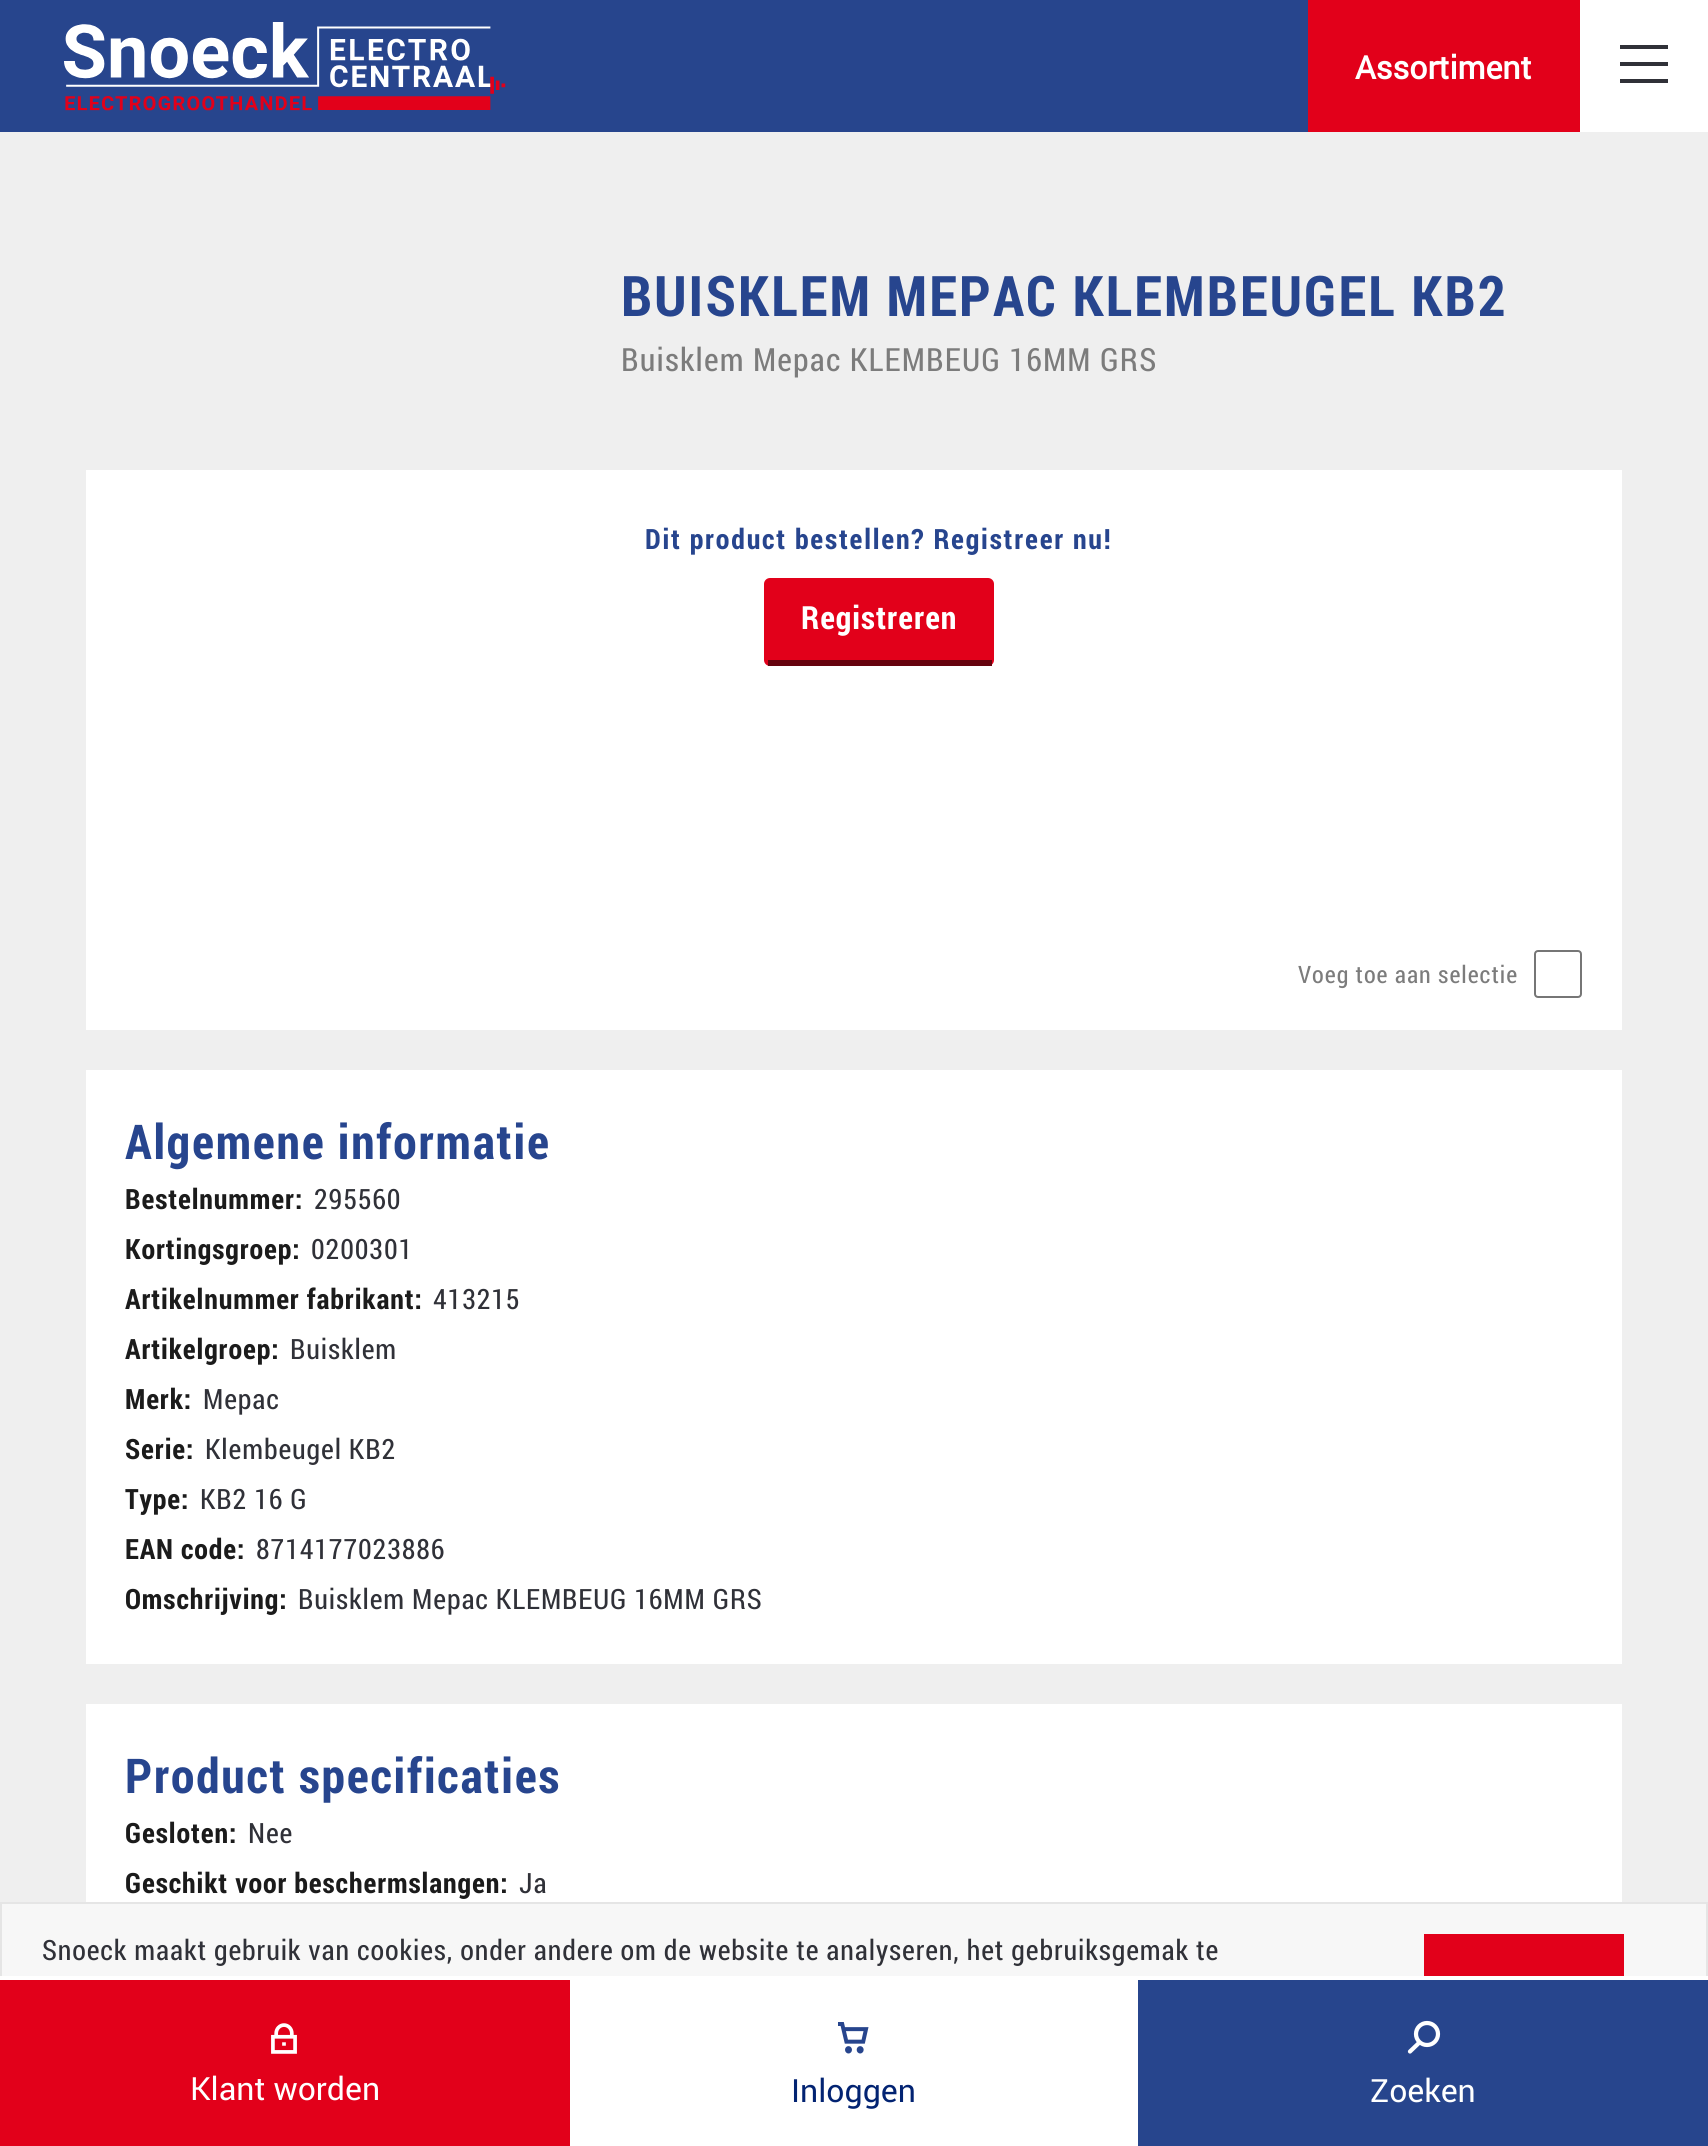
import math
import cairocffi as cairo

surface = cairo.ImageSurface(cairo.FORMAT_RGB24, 1708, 2146)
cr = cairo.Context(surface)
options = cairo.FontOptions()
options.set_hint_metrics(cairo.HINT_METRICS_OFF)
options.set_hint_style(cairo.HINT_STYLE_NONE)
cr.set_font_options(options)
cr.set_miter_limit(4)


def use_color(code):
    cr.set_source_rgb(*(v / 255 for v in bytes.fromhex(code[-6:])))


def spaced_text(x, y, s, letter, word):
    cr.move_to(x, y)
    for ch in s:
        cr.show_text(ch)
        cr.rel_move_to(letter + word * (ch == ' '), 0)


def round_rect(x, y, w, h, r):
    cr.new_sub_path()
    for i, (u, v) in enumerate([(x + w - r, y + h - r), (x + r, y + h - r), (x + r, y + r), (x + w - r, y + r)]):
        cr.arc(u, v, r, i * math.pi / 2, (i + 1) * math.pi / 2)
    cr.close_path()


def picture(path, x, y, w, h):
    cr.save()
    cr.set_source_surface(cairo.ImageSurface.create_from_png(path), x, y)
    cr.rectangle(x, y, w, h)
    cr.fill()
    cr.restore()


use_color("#efefef")
cr.paint()
use_color("#27458d")
cr.rectangle(0, 0, 1308, 132)
cr.fill()
picture("img1.png", 64, 22, 442, 89)
use_color("#e2001a")
cr.rectangle(1308, 0, 272, 132)
cr.fill()
cr.select_font_face("Roboto", cairo.FONT_SLANT_NORMAL, cairo.FONT_WEIGHT_BOLD)
cr.set_font_size(32)
use_color("#ffffff")
cr.move_to(1355, 79)
cr.show_text("Assortiment")
cr.rectangle(1580, 0, 128, 132)
cr.fill()
use_color("#303138")
cr.new_path()
cr.move_to(1620, 45)
cr.line_to(1620, 49)
cr.line_to(1668, 49)
cr.line_to(1668, 45)
cr.close_path()
cr.move_to(1620, 62)
cr.line_to(1620, 66)
cr.line_to(1668, 66)
cr.line_to(1668, 62)
cr.close_path()
cr.move_to(1620, 79)
cr.line_to(1620, 83)
cr.line_to(1668, 83)
cr.line_to(1668, 79)
cr.close_path()
cr.fill()
cr.select_font_face("Roboto Condensed", cairo.FONT_SLANT_NORMAL, cairo.FONT_WEIGHT_BOLD)
cr.set_font_size(56)
use_color("#27458e")
spaced_text(621, 316, "BUISKLEM MEPAC KLEMBEUGEL KB2", 2.2, 0)
cr.select_font_face("Roboto Condensed")
cr.set_font_size(32)
use_color("#7c7c7c")
spaced_text(621, 371, "Buisklem Mepac KLEMBEUG 16MM GRS", 1.2, 0)
use_color("#ffffff")
cr.rectangle(86, 470, 1536, 560)
cr.fill()
cr.select_font_face("Roboto Condensed", cairo.FONT_SLANT_NORMAL, cairo.FONT_WEIGHT_BOLD)
cr.set_font_size(28)
use_color("#27458e")
spaced_text(645, 549, "Dit product bestellen? Registreer nu!", 1.8, 0)
use_color("#e2001a")
round_rect(764, 578, 230, 88, 6)
cr.fill()
use_color("#66030e")
cr.rectangle(768, 660, 224, 6)
cr.fill()
cr.set_font_size(32)
use_color("#ffffff")
spaced_text(801, 629, "Registreren", 1, 0)
cr.select_font_face("Roboto Condensed")
cr.set_font_size(24)
use_color("#7c7c7c")
spaced_text(1298, 983, "Voeg toe aan selectie", 1, 0)
round_rect(1535, 951, 46, 46, 3)
use_color("#767676")
cr.stroke()
use_color("#ffffff")
cr.rectangle(86, 1070, 1536, 594)
cr.fill()
cr.select_font_face("Roboto Condensed", cairo.FONT_SLANT_NORMAL, cairo.FONT_WEIGHT_BOLD)
cr.set_font_size(48)
use_color("#27458e")
spaced_text(125, 1159, "Algemene informatie", 1.8, 0)
cr.set_font_size(28)
use_color("#1b1b1b")
spaced_text(125, 1209, "Bestelnummer:", 0.9, 0)
cr.select_font_face("Roboto Condensed")
use_color("#303138")
spaced_text(314, 1209, "295560", 0.9, 0)
cr.select_font_face("Roboto Condensed", cairo.FONT_SLANT_NORMAL, cairo.FONT_WEIGHT_BOLD)
use_color("#1b1b1b")
spaced_text(125, 1259, "Kortingsgroep:", 0.9, 0)
cr.select_font_face("Roboto Condensed")
use_color("#303138")
spaced_text(311, 1259, "0200301", 0.9, 0)
cr.select_font_face("Roboto Condensed", cairo.FONT_SLANT_NORMAL, cairo.FONT_WEIGHT_BOLD)
use_color("#1b1b1b")
spaced_text(125, 1309, "Artikelnummer fabrikant:", 0.9, 0)
cr.select_font_face("Roboto Condensed")
use_color("#303138")
spaced_text(433, 1309, "413215", 0.9, 0)
cr.select_font_face("Roboto Condensed", cairo.FONT_SLANT_NORMAL, cairo.FONT_WEIGHT_BOLD)
use_color("#1b1b1b")
spaced_text(125, 1359, "Artikelgroep:", 0.9, 0)
cr.select_font_face("Roboto Condensed")
use_color("#303138")
spaced_text(290, 1359, "Buisklem", 0.9, 0)
cr.select_font_face("Roboto Condensed", cairo.FONT_SLANT_NORMAL, cairo.FONT_WEIGHT_BOLD)
use_color("#1b1b1b")
spaced_text(125, 1409, "Merk:", 0.9, 0)
cr.select_font_face("Roboto Condensed")
use_color("#303138")
spaced_text(203, 1409, "Mepac", 0.9, 0)
cr.select_font_face("Roboto Condensed", cairo.FONT_SLANT_NORMAL, cairo.FONT_WEIGHT_BOLD)
use_color("#1b1b1b")
spaced_text(125, 1459, "Serie:", 0.9, 0)
cr.select_font_face("Roboto Condensed")
use_color("#303138")
spaced_text(205, 1459, "Klembeugel KB2", 0.9, 0)
cr.select_font_face("Roboto Condensed", cairo.FONT_SLANT_NORMAL, cairo.FONT_WEIGHT_BOLD)
use_color("#1b1b1b")
spaced_text(125, 1509, "Type:", 0.9, 0)
cr.select_font_face("Roboto Condensed")
use_color("#303138")
spaced_text(200, 1509, "KB2 16 G", 0.9, 0)
cr.select_font_face("Roboto Condensed", cairo.FONT_SLANT_NORMAL, cairo.FONT_WEIGHT_BOLD)
use_color("#1b1b1b")
spaced_text(125, 1559, "EAN code:", 0.9, 0)
cr.select_font_face("Roboto Condensed")
use_color("#303138")
spaced_text(256, 1559, "8714177023886", 0.9, 0)
cr.select_font_face("Roboto Condensed", cairo.FONT_SLANT_NORMAL, cairo.FONT_WEIGHT_BOLD)
use_color("#1b1b1b")
spaced_text(125, 1609, "Omschrijving:", 0.9, 0)
cr.select_font_face("Roboto Condensed")
use_color("#303138")
spaced_text(298, 1609, "Buisklem Mepac KLEMBEUG 16MM GRS", 0.9, 0)
use_color("#ffffff")
cr.rectangle(86, 1704, 1536, 198)
cr.fill()
cr.select_font_face("Roboto Condensed", cairo.FONT_SLANT_NORMAL, cairo.FONT_WEIGHT_BOLD)
cr.set_font_size(48)
use_color("#27458e")
spaced_text(125, 1793, "Product specificaties", 1.8, 0)
cr.set_font_size(28)
use_color("#1b1b1b")
spaced_text(125, 1843, "Gesloten:", 0.9, 0)
cr.select_font_face("Roboto Condensed")
use_color("#303138")
spaced_text(248, 1843, "Nee", 0.9, 0)
cr.select_font_face("Roboto Condensed", cairo.FONT_SLANT_NORMAL, cairo.FONT_WEIGHT_BOLD)
use_color("#1b1b1b")
spaced_text(125, 1893, "Geschikt voor beschermslangen:", 0.9, 0)
cr.select_font_face("Roboto Condensed")
use_color("#303138")
spaced_text(519, 1893, "Ja", 0.9, 0)
use_color("#f7f7f7")
cr.rectangle(2, 1904, 1704, 72)
cr.fill()
cr.rectangle(1, 1903, 1706, 242)
use_color("#e5e5e5")
cr.stroke()
use_color("#303138")
spaced_text(42, 1960, "Snoeck maakt gebruik van cookies, onder andere om de website te analyseren, het gebruiksgemak te", 0.9, 0)
use_color("#e2001a")
cr.rectangle(1424, 1934, 200, 42)
cr.fill()
use_color("#ffffff")
cr.rectangle(0, 1976, 1708, 4)
cr.fill()
use_color("#e2001a")
cr.rectangle(0, 1980, 570, 166)
cr.fill()
picture("img2.png", 271, 2023, 26, 31)
cr.select_font_face("Roboto")
cr.set_font_size(32)
use_color("#ffffff")
cr.move_to(190, 2100)
cr.show_text("Klant worden")
cr.rectangle(570, 1980, 568, 166)
cr.fill()
picture("img3.png", 838, 2022, 31, 32)
use_color("#022372")
cr.move_to(791, 2102)
cr.show_text("Inloggen")
use_color("#27458d")
cr.rectangle(1138, 1980, 570, 166)
cr.fill()
cr.new_path()
cr.move_to(1410, 2051.5)
cr.line_to(1421.5, 2040.5)
use_color("#ffffff")
cr.set_line_width(4.2)
cr.set_line_cap(cairo.LINE_CAP_ROUND)
cr.set_line_join(cairo.LINE_JOIN_ROUND)
cr.stroke()
use_color("#27458d")
cr.arc(1427, 2034, 11, 0, 2 * math.pi)
cr.fill_preserve()
use_color("#ffffff")
cr.set_line_cap(cairo.LINE_CAP_BUTT)
cr.set_line_join(cairo.LINE_JOIN_MITER)
cr.stroke()
cr.move_to(1370, 2102)
cr.show_text("Zoeken")
surface.write_to_png("result.png")
